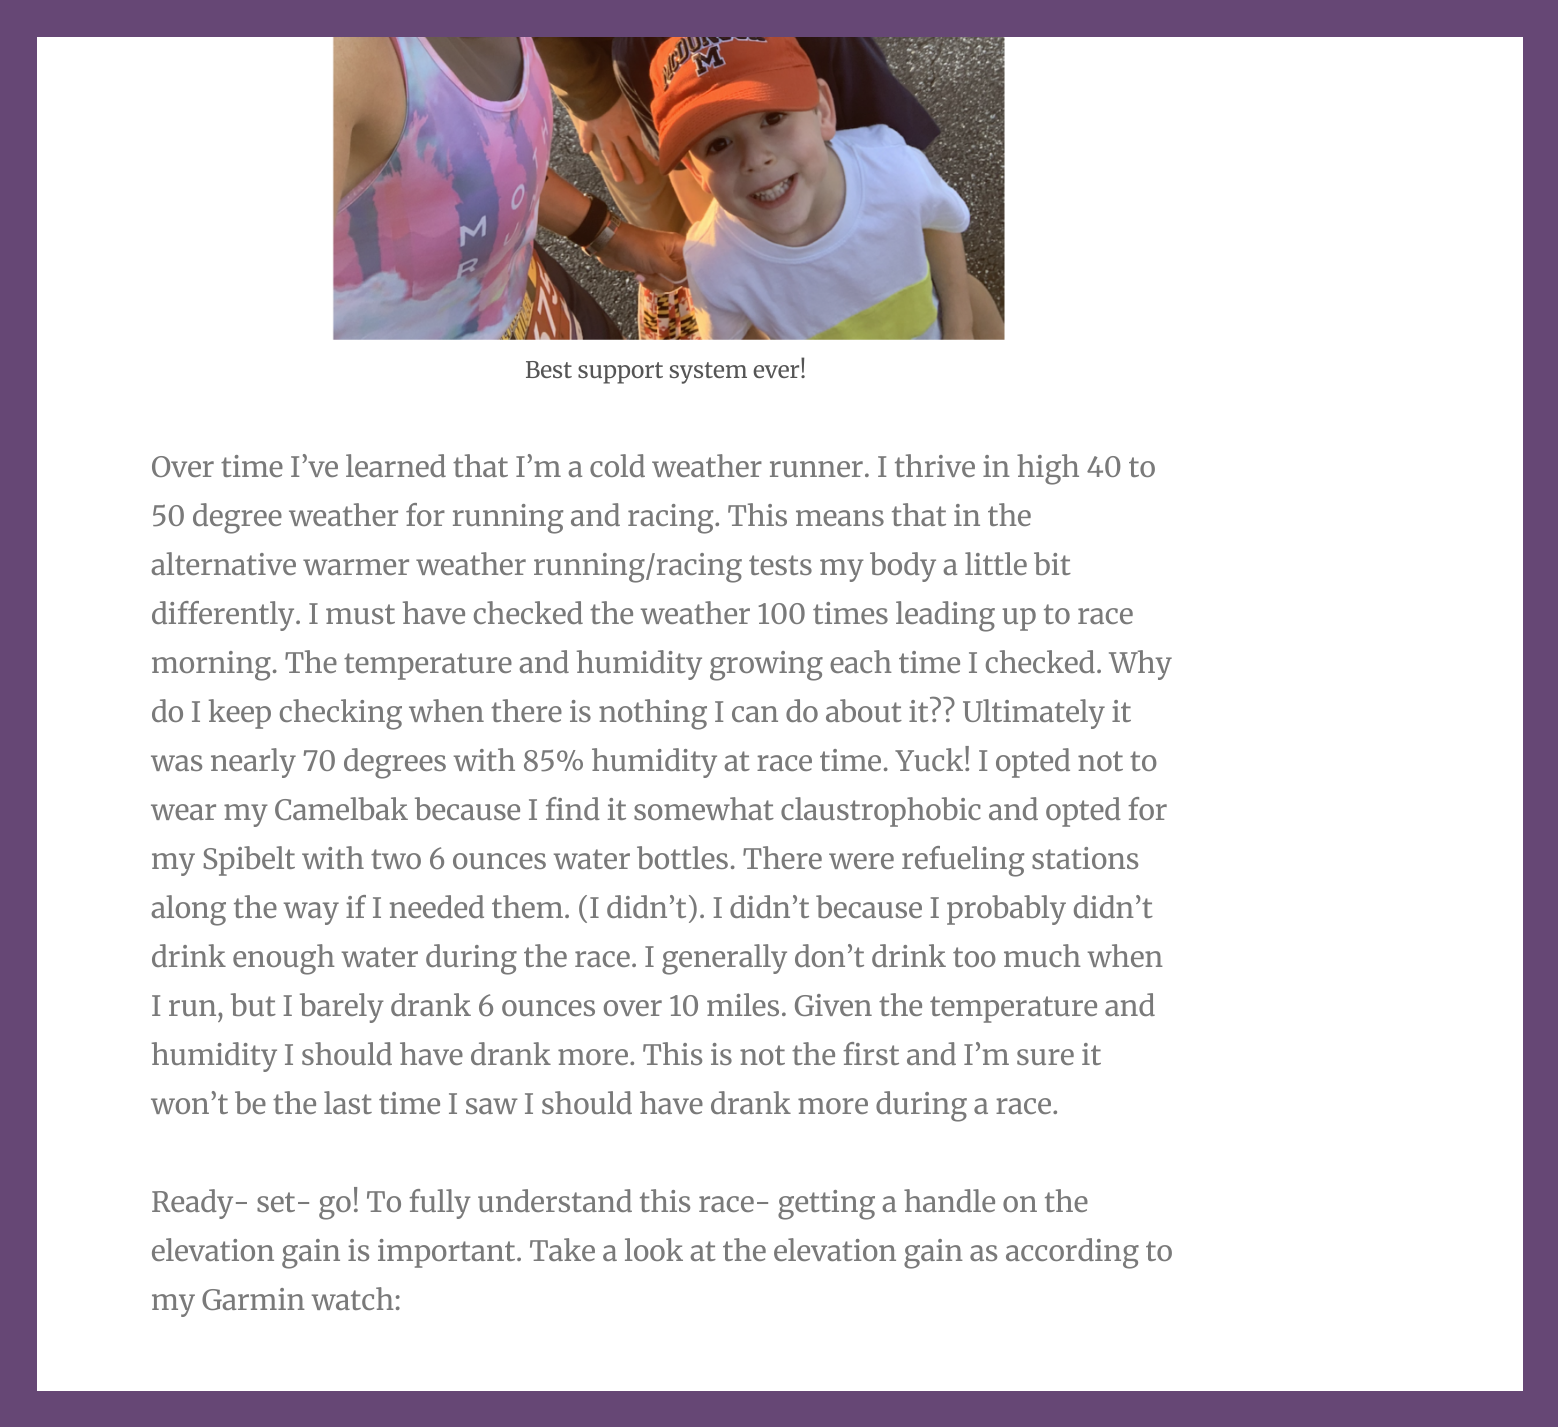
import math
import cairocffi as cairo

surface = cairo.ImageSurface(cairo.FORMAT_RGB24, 1558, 1427)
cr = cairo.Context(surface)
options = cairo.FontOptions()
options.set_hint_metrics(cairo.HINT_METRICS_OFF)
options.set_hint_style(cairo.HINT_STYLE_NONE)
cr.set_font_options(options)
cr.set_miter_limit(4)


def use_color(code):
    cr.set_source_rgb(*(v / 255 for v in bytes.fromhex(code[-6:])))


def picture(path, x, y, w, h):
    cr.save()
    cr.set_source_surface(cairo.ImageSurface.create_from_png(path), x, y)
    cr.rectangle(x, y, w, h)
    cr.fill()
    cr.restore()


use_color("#664775")
cr.paint()
use_color("#ffffff")
cr.rectangle(37, 37, 1486, 1354)
cr.fill()
picture("img1.png", 332, 37, 673, 303)
cr.select_font_face("Merriweather")
cr.set_font_size(22.75)
use_color("#555555")
cr.move_to(525, 378)
cr.show_text("Best support system ever!")
cr.set_font_size(28)
use_color("#7a7a7a")
cr.move_to(151, 477)
cr.show_text("Over time I’ve learned that I’m a cold weather runner. I thrive in high 40 to")
cr.move_to(151, 526)
cr.show_text("50 degree weather for running and racing. This means that in the")
cr.move_to(151, 575)
cr.show_text("alternative warmer weather running/racing tests my body a little bit")
cr.move_to(151, 624)
cr.show_text("differently. I must have checked the weather 100 times leading up to race")
cr.move_to(151, 673)
cr.show_text("morning. The temperature and humidity growing each time I checked. Why")
cr.move_to(151, 722)
cr.show_text("do I keep checking when there is nothing I can do about it?? Ultimately it")
cr.move_to(151, 771)
cr.show_text("was nearly 70 degrees with 85% humidity at race time. Yuck! I opted not to")
cr.move_to(151, 820)
cr.show_text("wear my Camelbak because I find it somewhat claustrophobic and opted for")
cr.move_to(151, 869)
cr.show_text("my Spibelt with two 6 ounces water bottles. There were refueling stations")
cr.move_to(151, 918)
cr.show_text("along the way if I needed them. (I didn’t). I didn’t because I probably didn’t")
cr.move_to(151, 967)
cr.show_text("drink enough water during the race. I generally don’t drink too much when")
cr.move_to(151, 1016)
cr.show_text("I run, but I barely drank 6 ounces over 10 miles. Given the temperature and")
cr.move_to(151, 1065)
cr.show_text("humidity I should have drank more. This is not the first and I’m sure it")
cr.move_to(151, 1114)
cr.show_text("won’t be the last time I saw I should have drank more during a race.")
cr.move_to(151, 1212)
cr.show_text("Ready- set- go! To fully understand this race- getting a handle on the")
cr.move_to(151, 1261)
cr.show_text("elevation gain is important. Take a look at the elevation gain as according to")
cr.move_to(151, 1310)
cr.show_text("my Garmin watch:")
surface.write_to_png("result.png")
